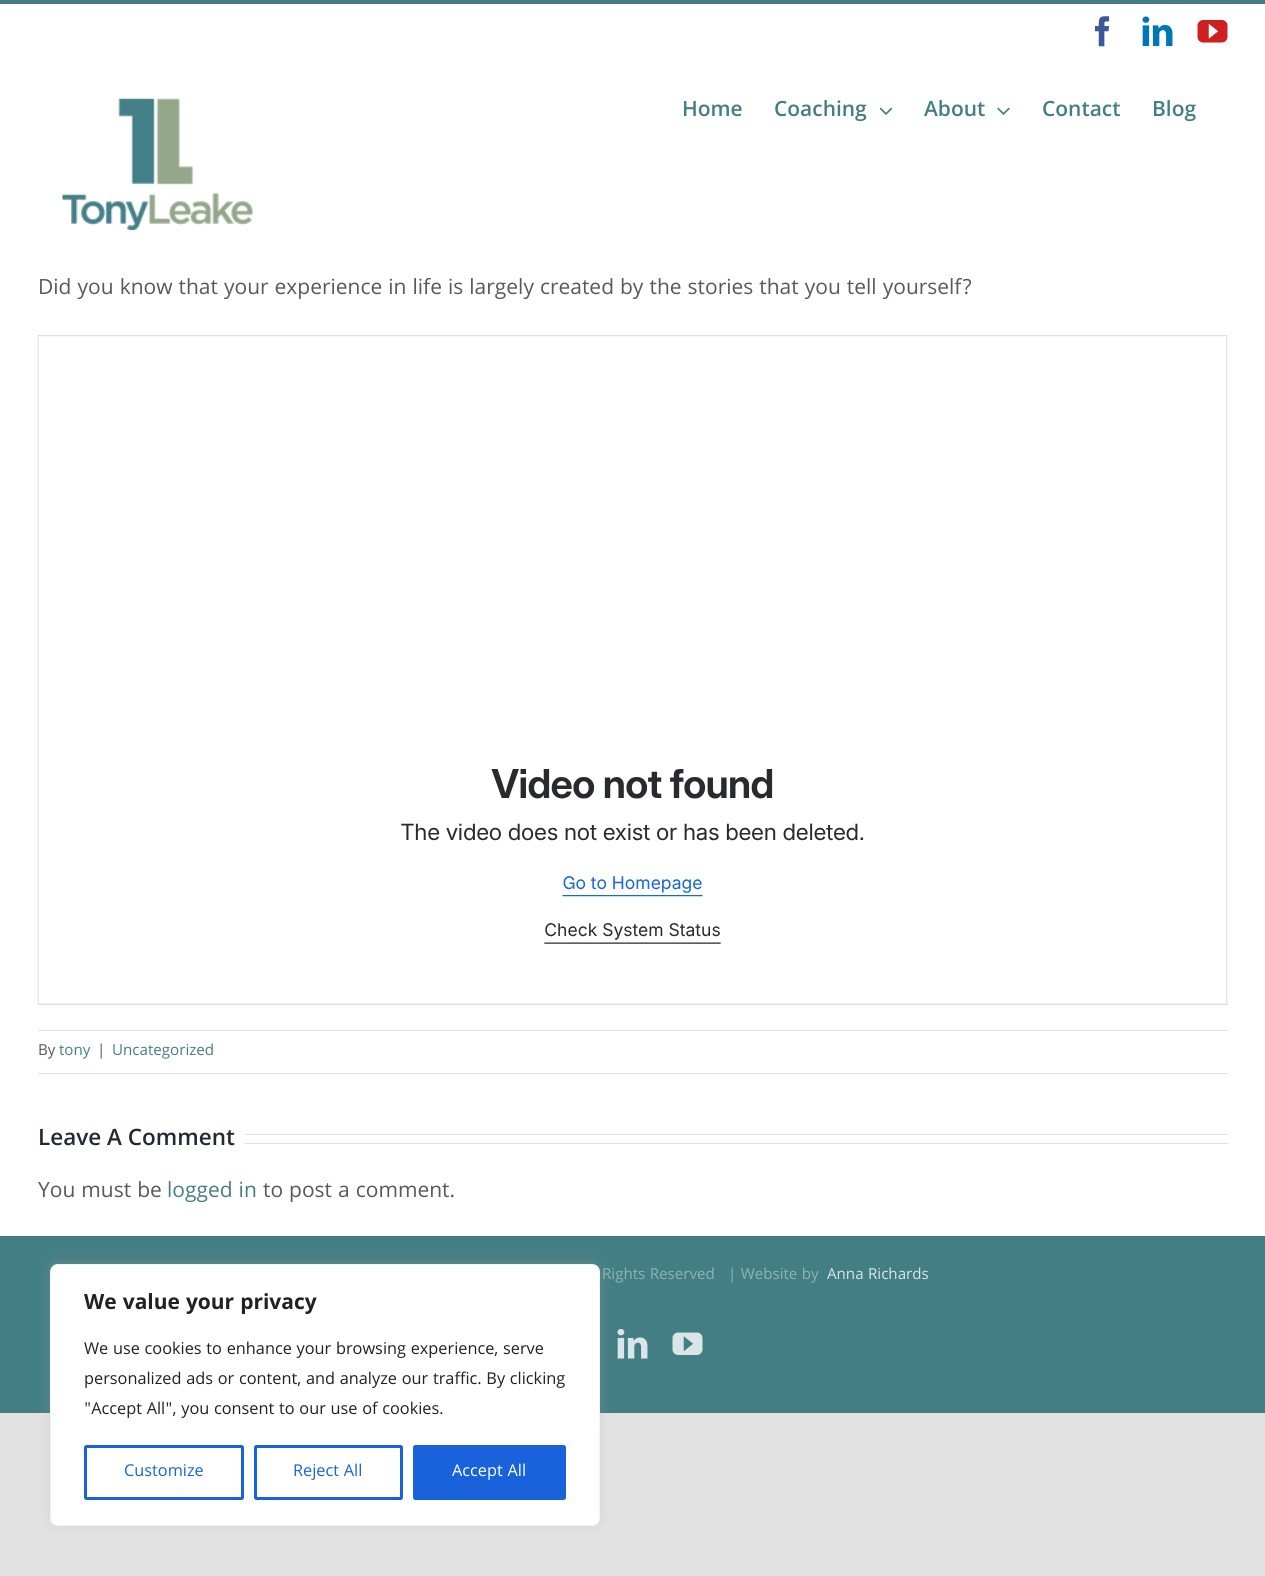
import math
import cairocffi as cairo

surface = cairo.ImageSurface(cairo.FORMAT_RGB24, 1265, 1576)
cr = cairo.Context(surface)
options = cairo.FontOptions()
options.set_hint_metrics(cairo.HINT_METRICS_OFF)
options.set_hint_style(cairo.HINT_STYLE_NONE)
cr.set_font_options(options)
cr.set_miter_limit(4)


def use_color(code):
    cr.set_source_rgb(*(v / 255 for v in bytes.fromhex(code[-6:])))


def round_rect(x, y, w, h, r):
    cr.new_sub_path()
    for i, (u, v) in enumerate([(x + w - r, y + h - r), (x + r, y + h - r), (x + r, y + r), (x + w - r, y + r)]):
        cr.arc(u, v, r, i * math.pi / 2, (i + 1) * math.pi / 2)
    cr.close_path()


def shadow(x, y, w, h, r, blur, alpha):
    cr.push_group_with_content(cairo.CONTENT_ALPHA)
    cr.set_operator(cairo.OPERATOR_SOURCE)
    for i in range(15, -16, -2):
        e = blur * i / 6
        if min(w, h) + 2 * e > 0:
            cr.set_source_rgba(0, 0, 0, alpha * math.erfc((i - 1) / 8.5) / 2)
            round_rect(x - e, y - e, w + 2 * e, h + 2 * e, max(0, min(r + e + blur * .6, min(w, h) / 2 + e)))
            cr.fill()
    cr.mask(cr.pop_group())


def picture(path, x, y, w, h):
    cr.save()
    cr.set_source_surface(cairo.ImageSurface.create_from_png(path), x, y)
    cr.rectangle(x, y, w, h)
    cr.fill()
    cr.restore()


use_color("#e2e2e2")
cr.paint()
use_color("#ffffff")
cr.rectangle(0, 4, 1265, 266)
cr.fill()
use_color("#437e84")
cr.rectangle(0, 0, 1265, 4)
cr.fill()
picture("img1.png", 1095, 16, 14, 31)
picture("img2.png", 1142, 16, 31, 31)
picture("img3.png", 1197, 20, 31, 23)
picture("img4.png", 62, 98, 191, 132)
cr.select_font_face("Khula SemiBold")
cr.set_font_size(22.5)
cr.move_to(682, 116)
cr.show_text("Home")
cr.move_to(774, 116)
cr.show_text("Coaching")
picture("img5.png", 879, 107, 14, 8)
cr.move_to(924, 116)
cr.show_text("About")
picture("img6.png", 997, 107, 13, 8)
cr.move_to(1042, 116)
cr.show_text("Contact")
cr.move_to(1152, 116)
cr.show_text("Blog")
use_color("#ffffff")
cr.rectangle(0, 270, 1265, 966)
cr.fill()
cr.select_font_face("Khula")
use_color("#595959")
cr.move_to(38, 294)
cr.show_text("Did you know that your experience in life is largely created by the stories that you tell yourself?")
picture("img7.png", 37, 335, 1191, 670)
use_color("#e2e2e2")
cr.rectangle(38, 1030, 1190, 1)
cr.fill()
cr.rectangle(38, 1073, 1190, 1)
cr.fill()
cr.set_font_size(16.25)
use_color("#595959")
cr.move_to(38, 1055)
cr.show_text("By")
use_color("#437e84")
cr.move_to(59, 1055)
cr.show_text("tony")
use_color("#595959")
cr.move_to(97, 1055)
cr.show_text("|")
use_color("#437e84")
cr.move_to(112, 1055)
cr.show_text("Uncategorized")
cr.select_font_face("Open Sans SemiBold")
cr.set_font_size(22.5)
use_color("#212934")
cr.move_to(38, 1145)
cr.show_text("Leave A Comment")
use_color("#e2e2e2")
cr.rectangle(245, 1134, 983, 1)
cr.fill()
cr.rectangle(245, 1143, 983, 1)
cr.fill()
cr.select_font_face("Khula")
use_color("#595959")
cr.move_to(38, 1197)
cr.show_text("You must be")
use_color("#437e84")
cr.move_to(167, 1197)
cr.show_text("logged in")
use_color("#595959")
cr.move_to(263, 1197)
cr.show_text("to post a comment.")
use_color("#437e84")
cr.rectangle(0, 1236, 1265, 177)
cr.fill()
cr.set_font_size(16.25)
use_color("#8eb2b5")
cr.move_to(602, 1279)
cr.show_text("Rights Reserved   | Website by")
use_color("#d9e5e6")
cr.move_to(827, 1279)
cr.show_text("Anna Richards")
picture("img8.png", 617, 1329, 31, 30)
picture("img9.png", 672, 1332, 31, 23)
use_color("#acabab")
shadow(50, 1263, 550, 262, 8, 6, 0.3)
use_color("#ffffff")
round_rect(50.5, 1264.5, 549, 261, 7.5)
cr.fill_preserve()
use_color("#f4f4f4")
cr.set_line_width(1)
cr.stroke()
cr.select_font_face("Khula", cairo.FONT_SLANT_NORMAL, cairo.FONT_WEIGHT_BOLD)
cr.set_font_size(22.5)
use_color("#212121")
cr.move_to(84, 1309)
cr.show_text("We value your privacy")
cr.select_font_face("Khula")
cr.set_font_size(17.5)
cr.move_to(84, 1354)
cr.show_text("We use cookies to enhance your browsing experience, serve")
cr.move_to(84, 1384)
cr.show_text("personalized ads or content, and analyze our traffic. By clicking")
cr.move_to(84, 1414)
cr.show_text("\"Accept All\", you consent to our use of cookies.")
round_rect(85.5, 1446.5, 157, 52, 1)
use_color("#1863dc")
cr.set_line_width(3)
cr.stroke()
cr.move_to(124, 1476)
cr.show_text("Customize")
round_rect(255.5, 1446.5, 146, 52, 1)
cr.stroke()
cr.move_to(293, 1476)
cr.show_text("Reject All")
round_rect(414.5, 1446.5, 150, 52, 1)
cr.fill_preserve()
cr.stroke()
use_color("#ffffff")
cr.move_to(452, 1476)
cr.show_text("Accept All")
surface.write_to_png("result.png")
